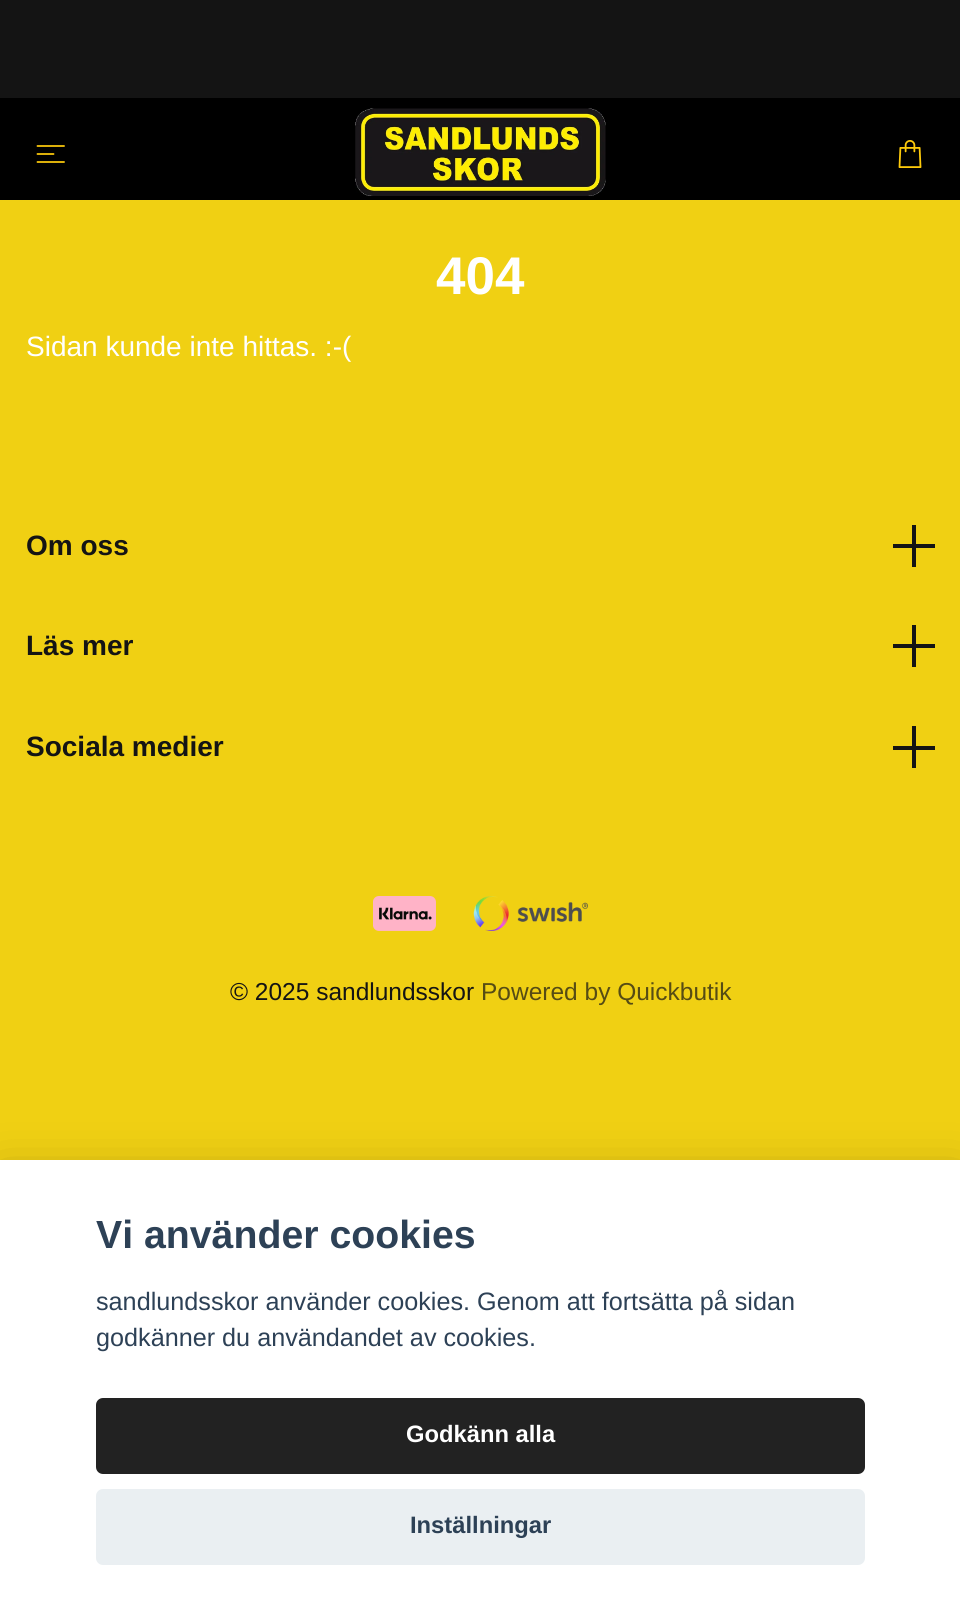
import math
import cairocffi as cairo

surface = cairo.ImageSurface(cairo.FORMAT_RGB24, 960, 1617)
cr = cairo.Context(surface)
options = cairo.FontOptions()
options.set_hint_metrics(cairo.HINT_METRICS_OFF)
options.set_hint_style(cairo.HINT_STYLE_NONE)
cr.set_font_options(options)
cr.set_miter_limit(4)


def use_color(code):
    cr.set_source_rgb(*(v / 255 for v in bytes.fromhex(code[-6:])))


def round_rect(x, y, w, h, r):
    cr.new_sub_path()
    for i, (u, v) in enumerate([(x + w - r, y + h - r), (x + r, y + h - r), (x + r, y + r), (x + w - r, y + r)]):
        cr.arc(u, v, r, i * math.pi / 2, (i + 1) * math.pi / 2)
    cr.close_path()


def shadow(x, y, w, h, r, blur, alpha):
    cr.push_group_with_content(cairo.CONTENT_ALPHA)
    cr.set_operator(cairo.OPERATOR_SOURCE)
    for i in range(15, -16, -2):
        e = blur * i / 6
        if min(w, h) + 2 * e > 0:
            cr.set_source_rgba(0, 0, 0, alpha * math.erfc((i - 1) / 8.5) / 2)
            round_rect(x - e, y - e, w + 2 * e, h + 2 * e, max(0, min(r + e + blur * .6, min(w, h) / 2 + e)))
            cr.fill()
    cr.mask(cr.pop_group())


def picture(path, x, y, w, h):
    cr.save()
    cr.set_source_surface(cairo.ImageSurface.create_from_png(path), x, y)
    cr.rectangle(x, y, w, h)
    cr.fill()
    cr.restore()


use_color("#f0d013")
cr.paint()
use_color("#141414")
cr.rectangle(0, 0, 960, 98)
cr.fill()
use_color("#000000")
cr.rectangle(0, 98, 960, 102)
cr.fill()
cr.new_path()
cr.move_to(37.5, 146)
cr.line_to(64, 146)
cr.move_to(37.5, 154)
cr.line_to(53.5, 154)
cr.move_to(37.5, 162)
cr.line_to(64, 162)
use_color("#fdca0b")
cr.set_line_width(1.8)
cr.set_line_cap(cairo.LINE_CAP_ROUND)
cr.set_line_join(cairo.LINE_JOIN_ROUND)
cr.stroke()
picture("img1.png", 355, 108, 251, 88)
picture("img2.png", 898, 140, 24, 28)
cr.select_font_face("Liberation Sans", cairo.FONT_SLANT_NORMAL, cairo.FONT_WEIGHT_BOLD)
cr.set_font_size(53)
use_color("#ffffff")
cr.move_to(436, 294)
cr.show_text("404")
cr.select_font_face("Liberation Sans")
cr.set_font_size(28)
cr.move_to(26, 356)
cr.show_text("Sidan kunde inte hittas. :-(")
cr.select_font_face("Liberation Sans", cairo.FONT_SLANT_NORMAL, cairo.FONT_WEIGHT_BOLD)
use_color("#141414")
cr.move_to(26, 555)
cr.show_text("Om oss")
cr.rectangle(912, 525, 4, 42)
cr.fill()
cr.rectangle(893, 544, 42, 4)
cr.fill()
cr.move_to(26, 655)
cr.show_text("Läs mer")
cr.rectangle(912, 625, 4, 42)
cr.fill()
cr.rectangle(893, 644, 42, 4)
cr.fill()
cr.move_to(26, 756)
cr.show_text("Sociala medier")
cr.rectangle(912, 726, 4, 42)
cr.fill()
cr.rectangle(893, 746, 42, 4)
cr.fill()
picture("img3.png", 373, 896, 63, 35)
picture("img4.png", 473, 896, 115, 35)
cr.select_font_face("Liberation Sans")
cr.set_font_size(24.5)
cr.move_to(230, 1000)
cr.show_text("© 2025 sandlundsskor")
use_color("#564c14")
cr.move_to(481, 1000)
cr.show_text("Powered by Quickbutik")
use_color("#020203")
shadow(0, 1178, 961, 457, 0, 26, 0.28)
use_color("#ffffff")
cr.rectangle(0, 1160, 960, 457)
cr.fill()
cr.select_font_face("Liberation Sans", cairo.FONT_SLANT_NORMAL, cairo.FONT_WEIGHT_BOLD)
cr.set_font_size(39.25)
use_color("#2d4156")
cr.move_to(96, 1248)
cr.show_text("Vi använder cookies")
cr.select_font_face("Liberation Sans")
cr.set_font_size(25.2)
cr.move_to(96, 1310)
cr.show_text("sandlundsskor använder cookies. Genom att fortsätta på sidan")
cr.move_to(96, 1346)
cr.show_text("godkänner du användandet av cookies.")
use_color("#222222")
round_rect(96, 1398, 769, 76, 7)
cr.fill()
cr.select_font_face("Liberation Sans", cairo.FONT_SLANT_NORMAL, cairo.FONT_WEIGHT_BOLD)
cr.set_font_size(23.75)
use_color("#ffffff")
cr.move_to(406, 1442)
cr.show_text("Godkänn alla")
use_color("#eaeff2")
round_rect(96, 1489, 769, 76, 7)
cr.fill()
use_color("#2d4156")
cr.move_to(410, 1533)
cr.show_text("Inställningar")
surface.write_to_png("result.png")
